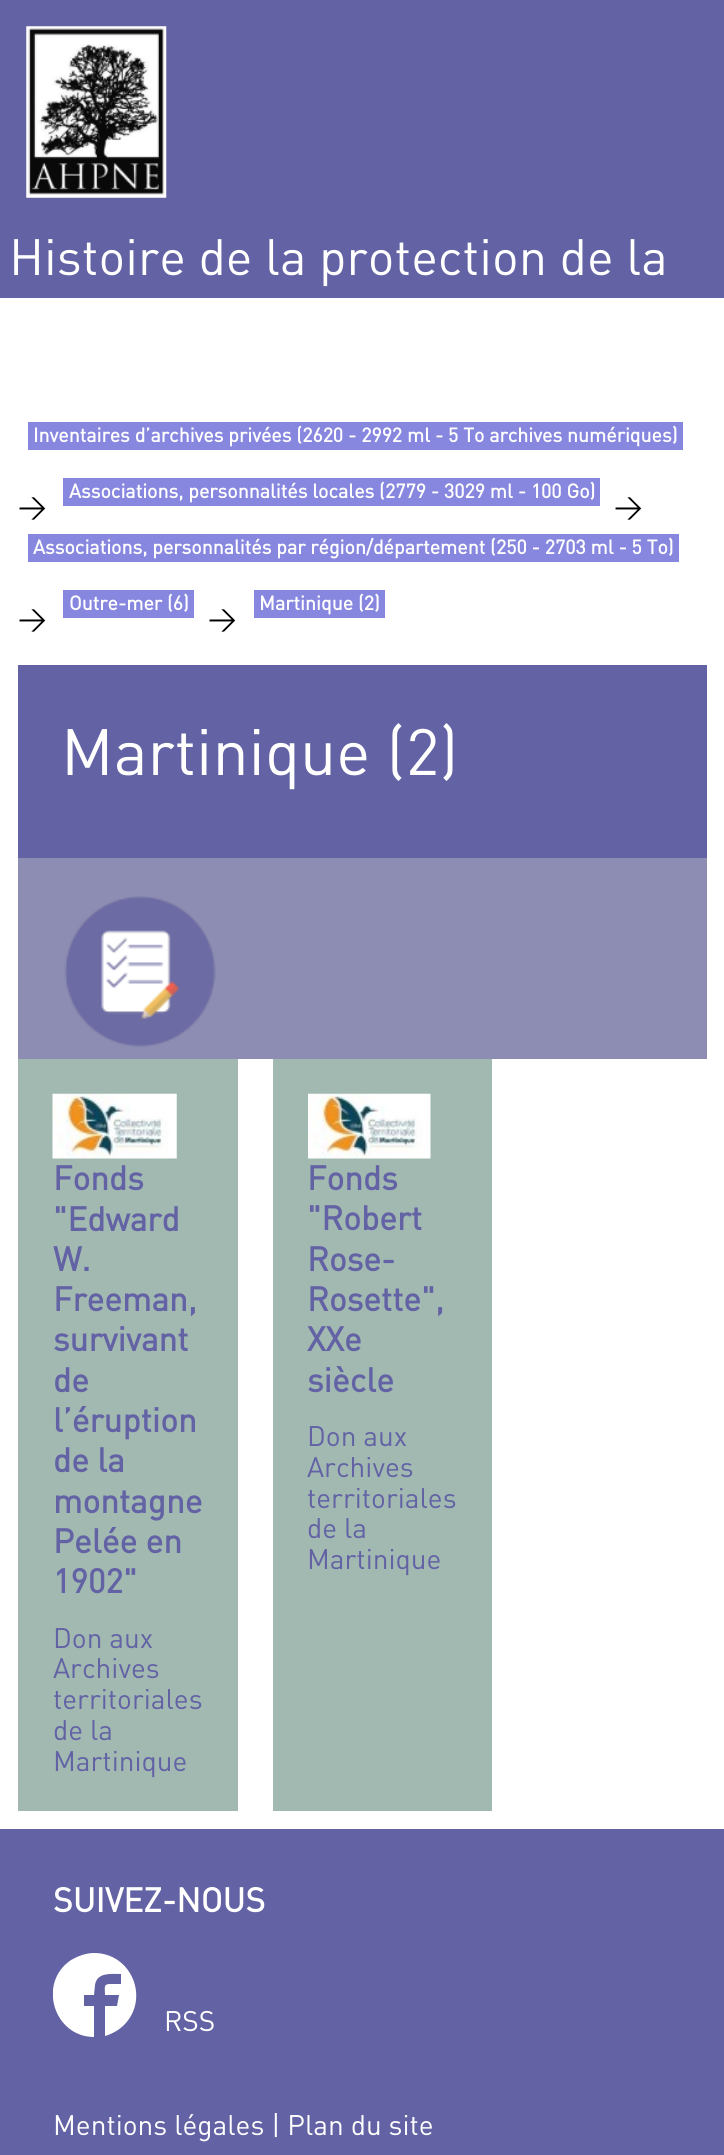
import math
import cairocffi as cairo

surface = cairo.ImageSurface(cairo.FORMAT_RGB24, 724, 2155)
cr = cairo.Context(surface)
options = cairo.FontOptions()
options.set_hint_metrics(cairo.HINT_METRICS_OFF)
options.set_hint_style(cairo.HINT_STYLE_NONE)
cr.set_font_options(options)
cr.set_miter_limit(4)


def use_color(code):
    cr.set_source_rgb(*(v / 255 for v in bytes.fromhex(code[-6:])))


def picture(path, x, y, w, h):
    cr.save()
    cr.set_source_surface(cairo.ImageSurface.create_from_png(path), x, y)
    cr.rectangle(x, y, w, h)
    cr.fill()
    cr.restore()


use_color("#ffffff")
cr.paint()
use_color("#6262a4")
cr.rectangle(0, 0, 724, 298)
cr.fill()
picture("img1.png", 26, 26, 141, 172)
cr.select_font_face("DIN")
cr.set_font_size(50.4)
use_color("#ffffff")
cr.move_to(9, 275)
cr.show_text("Histoire de la protection de la")
use_color("#8787e0")
cr.rectangle(28, 422, 655, 28)
cr.fill()
cr.select_font_face("DIN", cairo.FONT_SLANT_NORMAL, cairo.FONT_WEIGHT_BOLD)
cr.set_font_size(19.6)
use_color("#ffffff")
cr.move_to(33, 442)
cr.show_text("Inventaires d’archives privées (2620 - 2992 ml - 5 To archives numériques)")
use_color("#8787e0")
cr.rectangle(63, 478, 537, 28)
cr.fill()
use_color("#ffffff")
cr.move_to(69, 498)
cr.show_text("Associations, personnalités locales (2779 - 3029 ml - 100 Go)")
cr.select_font_face("DIN")
cr.set_font_size(28)
use_color("#000000")
cr.move_to(18, 516)
cr.show_text(">")
cr.move_to(614, 516)
cr.show_text(">")
use_color("#8787e0")
cr.rectangle(28, 534, 651, 28)
cr.fill()
cr.select_font_face("DIN", cairo.FONT_SLANT_NORMAL, cairo.FONT_WEIGHT_BOLD)
cr.set_font_size(19.6)
use_color("#ffffff")
cr.move_to(33, 554)
cr.show_text("Associations, personnalités par région/département (250 - 2703 ml - 5 To)")
use_color("#8787e0")
cr.rectangle(63, 590, 131, 28)
cr.fill()
use_color("#ffffff")
cr.move_to(69, 610)
cr.show_text("Outre-mer (6)")
use_color("#8787e0")
cr.rectangle(254, 590, 131, 28)
cr.fill()
use_color("#ffffff")
cr.move_to(259, 610)
cr.show_text("Martinique (2)")
cr.select_font_face("DIN")
cr.set_font_size(28)
use_color("#000000")
cr.move_to(18, 628)
cr.show_text(">")
cr.move_to(208, 628)
cr.show_text(">")
use_color("#8d8db3")
cr.rectangle(18, 858, 689, 201)
cr.fill()
use_color("#6262a4")
cr.rectangle(18, 665, 689, 193)
cr.fill()
cr.set_font_size(64.5)
use_color("#ffffff")
cr.move_to(61, 775)
cr.show_text("Martinique (2)")
picture("img2.png", 64, 896, 152, 151)
use_color("#a2b9b2")
cr.rectangle(18, 1059, 220, 752)
cr.fill()
picture("img3.png", 52, 1093, 125, 66)
cr.select_font_face("DIN", cairo.FONT_SLANT_NORMAL, cairo.FONT_WEIGHT_BOLD)
cr.set_font_size(33.5)
use_color("#6262a4")
cr.move_to(53, 1190)
cr.show_text("Fonds")
cr.move_to(53, 1231)
cr.show_text("\"Edward")
cr.move_to(53, 1271)
cr.show_text("W.")
cr.move_to(53, 1311)
cr.show_text("Freeman,")
cr.move_to(53, 1351)
cr.show_text("survivant")
cr.move_to(53, 1392)
cr.show_text("de")
cr.move_to(53, 1432)
cr.show_text("l’éruption")
cr.move_to(53, 1472)
cr.show_text("de la")
cr.move_to(53, 1513)
cr.show_text("montagne")
cr.move_to(53, 1553)
cr.show_text("Pelée en")
cr.move_to(53, 1593)
cr.show_text("1902\"")
cr.select_font_face("DIN")
cr.set_font_size(28)
cr.move_to(53, 1648)
cr.show_text("Don aux")
cr.move_to(53, 1678)
cr.show_text("Archives")
cr.move_to(53, 1709)
cr.show_text("territoriales")
cr.move_to(53, 1740)
cr.show_text("de la")
cr.move_to(53, 1771)
cr.show_text("Martinique")
use_color("#a2b9b2")
cr.rectangle(273, 1059, 219, 752)
cr.fill()
picture("img4.png", 308, 1093, 123, 66)
cr.select_font_face("DIN", cairo.FONT_SLANT_NORMAL, cairo.FONT_WEIGHT_BOLD)
cr.set_font_size(33.5)
use_color("#6262a4")
cr.move_to(307, 1190)
cr.show_text("Fonds")
cr.move_to(307, 1230)
cr.show_text("\"Robert")
cr.move_to(307, 1271)
cr.show_text("Rose-")
cr.move_to(307, 1311)
cr.show_text("Rosette\",")
cr.move_to(307, 1351)
cr.show_text("XXe")
cr.move_to(307, 1392)
cr.show_text("siècle")
cr.select_font_face("DIN")
cr.set_font_size(28)
cr.move_to(307, 1446)
cr.show_text("Don aux")
cr.move_to(307, 1477)
cr.show_text("Archives")
cr.move_to(307, 1508)
cr.show_text("territoriales")
cr.move_to(307, 1538)
cr.show_text("de la")
cr.move_to(307, 1569)
cr.show_text("Martinique")
cr.rectangle(0, 1829, 724, 326)
cr.fill()
cr.select_font_face("DIN", cairo.FONT_SLANT_NORMAL, cairo.FONT_WEIGHT_BOLD)
cr.set_font_size(33.5)
use_color("#ffffff")
cr.move_to(53, 1912)
cr.show_text("SUIVEZ-NOUS")
cr.save()
cr.rectangle(53, 1881, 619, 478)
cr.clip()
cr.new_path()
cr.move_to(94, 1953)
cr.curve_to(86, 1953, 78, 1956, 71, 1960)
cr.curve_to(37, 1983, 54, 2037, 94, 2037)
cr.line_to(94, 2006)
cr.line_to(84, 2006)
cr.line_to(84, 1995)
cr.line_to(94, 1995)
cr.line_to(95, 1985)
cr.curve_to(97, 1972, 111, 1974, 121, 1974)
cr.line_to(121, 1984)
cr.line_to(110, 1984)
cr.curve_to(103, 1984, 105, 1988, 105, 1995)
cr.line_to(119, 1995)
cr.line_to(117, 2006)
cr.line_to(105, 2006)
cr.line_to(105, 2036)
cr.curve_to(112, 2034, 119, 2030, 124, 2025)
cr.curve_to(150, 1999, 132, 1953, 94, 1953)
cr.close_path()
cr.fill()
cr.restore()
cr.select_font_face("DIN")
cr.set_font_size(28)
cr.move_to(164, 2031)
cr.show_text("RSS")
cr.move_to(53, 2135)
cr.show_text("Mentions légales | Plan du site")
surface.write_to_png("result.png")
